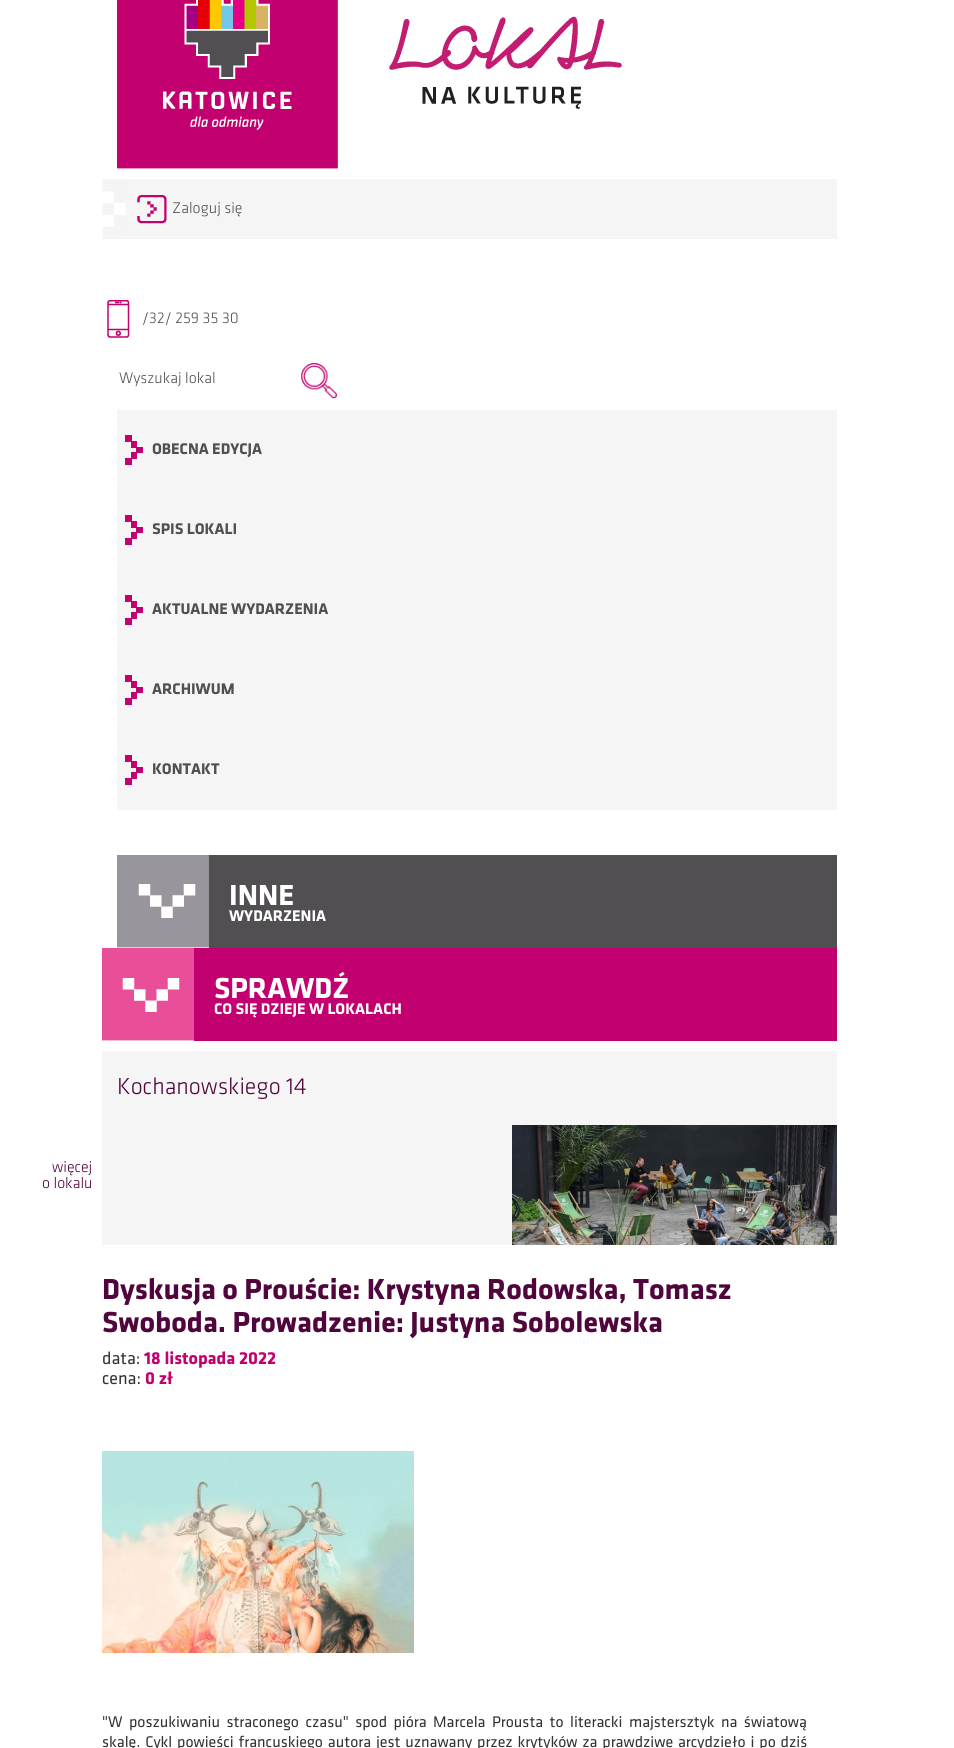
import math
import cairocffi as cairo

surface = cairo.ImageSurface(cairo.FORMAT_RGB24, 954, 1748)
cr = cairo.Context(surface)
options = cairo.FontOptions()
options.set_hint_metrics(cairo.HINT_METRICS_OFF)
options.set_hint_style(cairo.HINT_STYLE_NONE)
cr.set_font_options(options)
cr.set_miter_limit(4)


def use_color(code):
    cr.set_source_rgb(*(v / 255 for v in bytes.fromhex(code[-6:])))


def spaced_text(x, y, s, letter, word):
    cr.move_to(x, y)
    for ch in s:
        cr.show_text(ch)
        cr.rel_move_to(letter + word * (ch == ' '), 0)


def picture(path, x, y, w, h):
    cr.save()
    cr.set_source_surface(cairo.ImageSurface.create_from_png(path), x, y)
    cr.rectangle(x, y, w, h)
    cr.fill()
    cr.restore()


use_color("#ffffff")
cr.paint()
picture("img1.png", 117, 0, 507, 169)
use_color("#f5f5f5")
cr.rectangle(102, 179, 735, 60)
cr.fill()
picture("img2.png", 102, 180, 24, 58)
picture("img3.png", 137, 195, 30, 29)
cr.select_font_face("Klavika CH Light")
cr.set_font_size(16)
use_color("#524f54")
cr.move_to(172, 213)
cr.show_text("Zaloguj się")
picture("img4.png", 107, 300, 23, 38)
cr.move_to(142, 323)
cr.show_text("/32/ 259 35 30")
cr.move_to(119, 383)
cr.show_text("Wyszukaj lokal")
picture("img5.png", 301, 363, 36, 36)
use_color("#f5f5f5")
cr.rectangle(117, 410, 720, 400)
cr.fill()
picture("img6.png", 125, 435, 18, 30)
cr.select_font_face("Klavika CH", cairo.FONT_SLANT_NORMAL, cairo.FONT_WEIGHT_BOLD)
use_color("#524f54")
cr.move_to(152, 454)
cr.show_text("OBECNA EDYCJA")
picture("img6.png", 125, 515, 18, 30)
cr.move_to(152, 534)
cr.show_text("SPIS LOKALI")
picture("img6.png", 125, 595, 18, 30)
cr.move_to(152, 614)
cr.show_text("AKTUALNE WYDARZENIA")
picture("img6.png", 125, 675, 18, 30)
cr.move_to(152, 694)
cr.show_text("ARCHIWUM")
picture("img6.png", 125, 755, 18, 30)
cr.move_to(152, 774)
cr.show_text("KONTAKT")
use_color("#524f53")
cr.rectangle(209, 855, 628, 93)
cr.fill()
picture("img7.png", 117, 855, 92, 93)
cr.set_font_size(30)
use_color("#ffffff")
cr.move_to(229, 905)
cr.show_text("INNE")
cr.set_font_size(16)
cr.move_to(229, 921)
cr.show_text("WYDARZENIA")
use_color("#c2006f")
cr.rectangle(194, 948, 643, 93)
cr.fill()
picture("img8.png", 102, 948, 92, 93)
cr.set_font_size(30)
use_color("#ffffff")
cr.move_to(214, 998)
cr.show_text("SPRAWDŹ")
cr.set_font_size(16)
cr.move_to(214, 1014)
cr.show_text("CO SIĘ DZIEJE W LOKALACH")
use_color("#f5f5f5")
cr.rectangle(102, 1051, 735, 194)
cr.fill()
cr.select_font_face("Klavika CH Light")
cr.set_font_size(24)
use_color("#50053d")
cr.move_to(117, 1094)
cr.show_text("Kochanowskiego 14")
cr.set_font_size(16)
cr.move_to(52, 1172)
cr.show_text("więcej")
cr.move_to(42, 1188)
cr.show_text("o lokalu")
picture("img9.png", 512, 1125, 325, 120)
cr.select_font_face("Klavika CH", cairo.FONT_SLANT_NORMAL, cairo.FONT_WEIGHT_BOLD)
cr.set_font_size(30)
cr.move_to(102, 1299)
cr.show_text("Dyskusja o Prouście: Krystyna Rodowska, Tomasz")
cr.move_to(102, 1332)
cr.show_text("Swoboda. Prowadzenie: Justyna Sobolewska")
cr.select_font_face("Klavika CH")
cr.set_font_size(18)
use_color("#333333")
cr.move_to(102, 1364)
cr.show_text("data:")
cr.select_font_face("Klavika CH", cairo.FONT_SLANT_NORMAL, cairo.FONT_WEIGHT_BOLD)
use_color("#c2006f")
cr.move_to(144, 1364)
cr.show_text("18 listopada 2022")
cr.select_font_face("Klavika CH")
use_color("#333333")
cr.move_to(102, 1384)
cr.show_text("cena:")
cr.select_font_face("Klavika CH", cairo.FONT_SLANT_NORMAL, cairo.FONT_WEIGHT_BOLD)
use_color("#c2006f")
cr.move_to(145, 1384)
cr.show_text("0 zł")
picture("img10.png", 102, 1451, 312, 202)
cr.select_font_face("Klavika CH")
cr.set_font_size(16)
use_color("#333333")
spaced_text(102, 1727, "\"W poszukiwaniu straconego czasu\" spod pióra Marcela Prousta to literacki majstersztyk na światową", 0, 3)
spaced_text(102, 1747, "skalę. Cykl powieści francuskiego autora jest uznawany przez krytyków za prawdziwe arcydzieło i po dziś", 0, 1.4)
surface.write_to_png("result.png")
